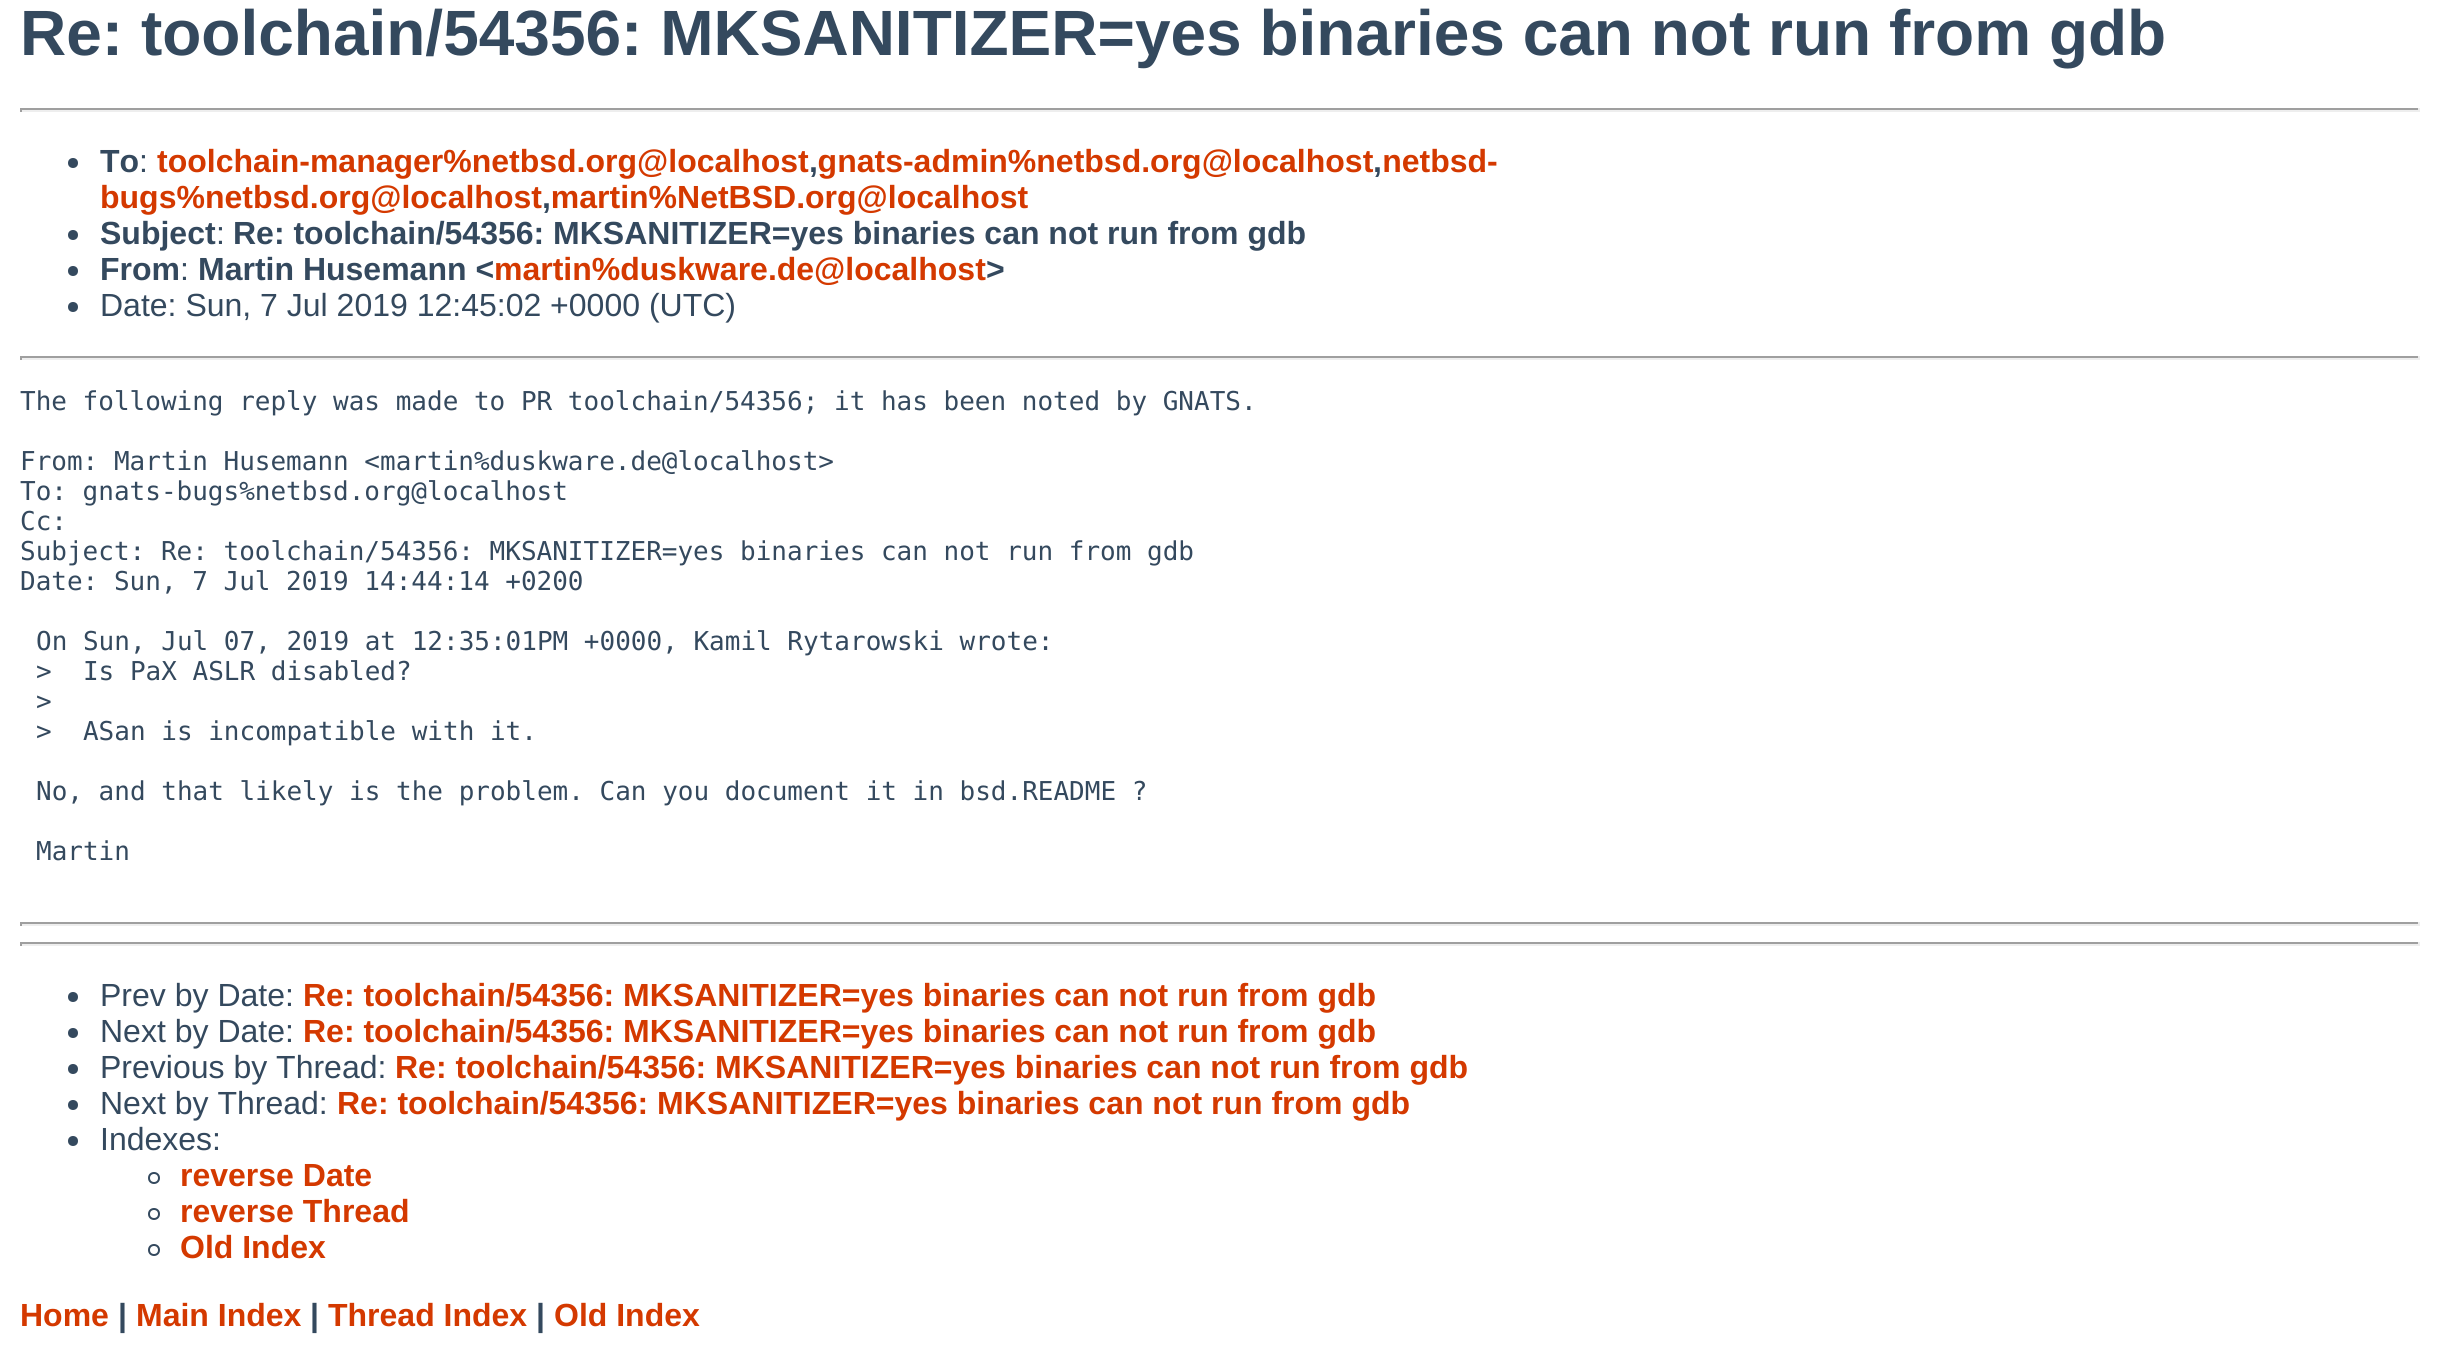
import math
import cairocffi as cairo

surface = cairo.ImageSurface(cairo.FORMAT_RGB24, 2456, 1348)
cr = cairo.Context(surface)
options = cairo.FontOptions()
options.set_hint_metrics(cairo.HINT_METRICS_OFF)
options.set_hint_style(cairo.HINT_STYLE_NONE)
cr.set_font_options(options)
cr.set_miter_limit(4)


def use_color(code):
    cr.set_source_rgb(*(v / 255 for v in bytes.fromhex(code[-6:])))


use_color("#ffffff")
cr.paint()
cr.select_font_face("Liberation Sans", cairo.FONT_SLANT_NORMAL, cairo.FONT_WEIGHT_BOLD)
cr.set_font_size(64)
use_color("#34495e")
cr.move_to(20, 55)
cr.show_text("Re: toolchain/54356: MKSANITIZER=yes binaries can not run from gdb")
use_color("#9f9f9f")
cr.rectangle(20, 108, 2400, 2)
cr.fill()
use_color("#eeeeee")
cr.rectangle(2418, 108, 2, 4)
cr.fill()
cr.rectangle(20, 110, 2400, 2)
cr.fill()
use_color("#9f9f9f")
cr.rectangle(20, 108, 2, 4)
cr.fill()
use_color("#34495e")
cr.arc(73, 163, 5, 0, 2 * math.pi)
cr.fill()
cr.set_font_size(32)
cr.move_to(100, 172)
cr.show_text("To")
cr.select_font_face("Liberation Sans")
cr.move_to(139, 172)
cr.show_text(":")
cr.select_font_face("Liberation Sans", cairo.FONT_SLANT_NORMAL, cairo.FONT_WEIGHT_BOLD)
use_color("#d43900")
cr.move_to(157, 172)
cr.show_text("toolchain-manager%netbsd.org@localhost gnats-admin%netbsd.org@localhost netbsd-")
use_color("#34495e")
cr.move_to(809, 172)
cr.show_text(",")
cr.move_to(1373, 172)
cr.show_text(",")
use_color("#d43900")
cr.move_to(100, 208)
cr.show_text("bugs%netbsd.org@localhost martin%NetBSD.org@localhost")
use_color("#34495e")
cr.move_to(542, 208)
cr.show_text(",")
cr.new_path()
cr.arc(73, 235, 5, 0, 2 * math.pi)
cr.fill()
cr.move_to(100, 244)
cr.show_text("Subject")
cr.select_font_face("Liberation Sans")
cr.move_to(216, 244)
cr.show_text(":")
cr.select_font_face("Liberation Sans", cairo.FONT_SLANT_NORMAL, cairo.FONT_WEIGHT_BOLD)
cr.move_to(233, 244)
cr.show_text("Re: toolchain/54356: MKSANITIZER=yes binaries can not run from gdb")
cr.new_path()
cr.arc(73, 271, 5, 0, 2 * math.pi)
cr.fill()
cr.move_to(100, 280)
cr.show_text("From")
cr.select_font_face("Liberation Sans")
cr.move_to(180, 280)
cr.show_text(":")
cr.select_font_face("Liberation Sans", cairo.FONT_SLANT_NORMAL, cairo.FONT_WEIGHT_BOLD)
cr.move_to(198, 280)
cr.show_text("Martin Husemann <")
use_color("#d43900")
cr.move_to(494, 280)
cr.show_text("martin%duskware.de@localhost")
use_color("#34495e")
cr.move_to(986, 280)
cr.show_text(">")
cr.new_path()
cr.arc(73, 307, 5, 0, 2 * math.pi)
cr.fill()
cr.select_font_face("Liberation Sans")
cr.move_to(100, 316)
cr.show_text("Date: Sun, 7 Jul 2019 12:45:02 +0000 (UTC)")
use_color("#9f9f9f")
cr.rectangle(20, 356, 2400, 2)
cr.fill()
use_color("#eeeeee")
cr.rectangle(2418, 356, 2, 4)
cr.fill()
cr.rectangle(20, 358, 2400, 2)
cr.fill()
use_color("#9f9f9f")
cr.rectangle(20, 356, 2, 4)
cr.fill()
cr.select_font_face("DejaVu Sans Mono")
cr.set_font_size(26)
use_color("#34495e")
cr.move_to(20, 410)
cr.show_text("The following reply was made to PR toolchain/54356; it has been noted by GNATS.")
cr.move_to(20, 470)
cr.show_text("From: Martin Husemann <martin%duskware.de@localhost>")
cr.move_to(20, 500)
cr.show_text("To: gnats-bugs%netbsd.org@localhost")
cr.move_to(20, 530)
cr.show_text("Cc:")
cr.move_to(20, 560)
cr.show_text("Subject: Re: toolchain/54356: MKSANITIZER=yes binaries can not run from gdb")
cr.move_to(20, 590)
cr.show_text("Date: Sun, 7 Jul 2019 14:44:14 +0200")
cr.move_to(36, 650)
cr.show_text("On Sun, Jul 07, 2019 at 12:35:01PM +0000, Kamil Rytarowski wrote:")
cr.move_to(36, 680)
cr.show_text(">  Is PaX ASLR disabled?")
cr.move_to(36, 710)
cr.show_text(">")
cr.move_to(36, 740)
cr.show_text(">  ASan is incompatible with it.")
cr.move_to(36, 800)
cr.show_text("No, and that likely is the problem. Can you document it in bsd.README ?")
cr.move_to(36, 860)
cr.show_text("Martin")
use_color("#9f9f9f")
cr.rectangle(20, 922, 2400, 2)
cr.fill()
use_color("#eeeeee")
cr.rectangle(2418, 922, 2, 4)
cr.fill()
cr.rectangle(20, 924, 2400, 2)
cr.fill()
use_color("#9f9f9f")
cr.rectangle(20, 922, 2, 4)
cr.fill()
cr.rectangle(20, 942, 2400, 2)
cr.fill()
use_color("#eeeeee")
cr.rectangle(2418, 942, 2, 4)
cr.fill()
cr.rectangle(20, 944, 2400, 2)
cr.fill()
use_color("#9f9f9f")
cr.rectangle(20, 942, 2, 4)
cr.fill()
use_color("#34495e")
cr.arc(73, 997, 5, 0, 2 * math.pi)
cr.fill()
cr.select_font_face("Liberation Sans")
cr.set_font_size(32)
cr.move_to(100, 1006)
cr.show_text("Prev by Date:")
cr.select_font_face("Liberation Sans", cairo.FONT_SLANT_NORMAL, cairo.FONT_WEIGHT_BOLD)
use_color("#d43900")
cr.move_to(303, 1006)
cr.show_text("Re: toolchain/54356: MKSANITIZER=yes binaries can not run from gdb")
use_color("#34495e")
cr.new_path()
cr.arc(73, 1033, 5, 0, 2 * math.pi)
cr.fill()
cr.select_font_face("Liberation Sans")
cr.move_to(100, 1042)
cr.show_text("Next by Date:")
cr.select_font_face("Liberation Sans", cairo.FONT_SLANT_NORMAL, cairo.FONT_WEIGHT_BOLD)
use_color("#d43900")
cr.move_to(303, 1042)
cr.show_text("Re: toolchain/54356: MKSANITIZER=yes binaries can not run from gdb")
use_color("#34495e")
cr.new_path()
cr.arc(73, 1069, 5, 0, 2 * math.pi)
cr.fill()
cr.select_font_face("Liberation Sans")
cr.move_to(100, 1078)
cr.show_text("Previous by Thread:")
cr.select_font_face("Liberation Sans", cairo.FONT_SLANT_NORMAL, cairo.FONT_WEIGHT_BOLD)
use_color("#d43900")
cr.move_to(395, 1078)
cr.show_text("Re: toolchain/54356: MKSANITIZER=yes binaries can not run from gdb")
use_color("#34495e")
cr.new_path()
cr.arc(73, 1105, 5, 0, 2 * math.pi)
cr.fill()
cr.select_font_face("Liberation Sans")
cr.move_to(100, 1114)
cr.show_text("Next by Thread:")
cr.select_font_face("Liberation Sans", cairo.FONT_SLANT_NORMAL, cairo.FONT_WEIGHT_BOLD)
use_color("#d43900")
cr.move_to(337, 1114)
cr.show_text("Re: toolchain/54356: MKSANITIZER=yes binaries can not run from gdb")
use_color("#34495e")
cr.new_path()
cr.arc(73, 1141, 5, 0, 2 * math.pi)
cr.fill()
cr.select_font_face("Liberation Sans")
cr.move_to(100, 1150)
cr.show_text("Indexes:")
cr.new_path()
cr.arc(154, 1178, 5, 0, 2 * math.pi)
cr.stroke()
cr.select_font_face("Liberation Sans", cairo.FONT_SLANT_NORMAL, cairo.FONT_WEIGHT_BOLD)
use_color("#d43900")
cr.move_to(180, 1186)
cr.show_text("reverse Date")
cr.new_path()
cr.arc(154, 1214, 5, 0, 2 * math.pi)
use_color("#34495e")
cr.stroke()
use_color("#d43900")
cr.move_to(180, 1222)
cr.show_text("reverse Thread")
cr.new_path()
cr.arc(154, 1250, 5, 0, 2 * math.pi)
use_color("#34495e")
cr.stroke()
use_color("#d43900")
cr.move_to(180, 1258)
cr.show_text("Old Index")
cr.move_to(20, 1326)
cr.show_text("Home")
use_color("#34495e")
cr.move_to(118, 1326)
cr.show_text("|")
use_color("#d43900")
cr.move_to(136, 1326)
cr.show_text("Main Index")
use_color("#34495e")
cr.move_to(310, 1326)
cr.show_text("|")
use_color("#d43900")
cr.move_to(328, 1326)
cr.show_text("Thread Index")
use_color("#34495e")
cr.move_to(536, 1326)
cr.show_text("|")
use_color("#d43900")
cr.move_to(554, 1326)
cr.show_text("Old Index")
surface.write_to_png("result.png")
